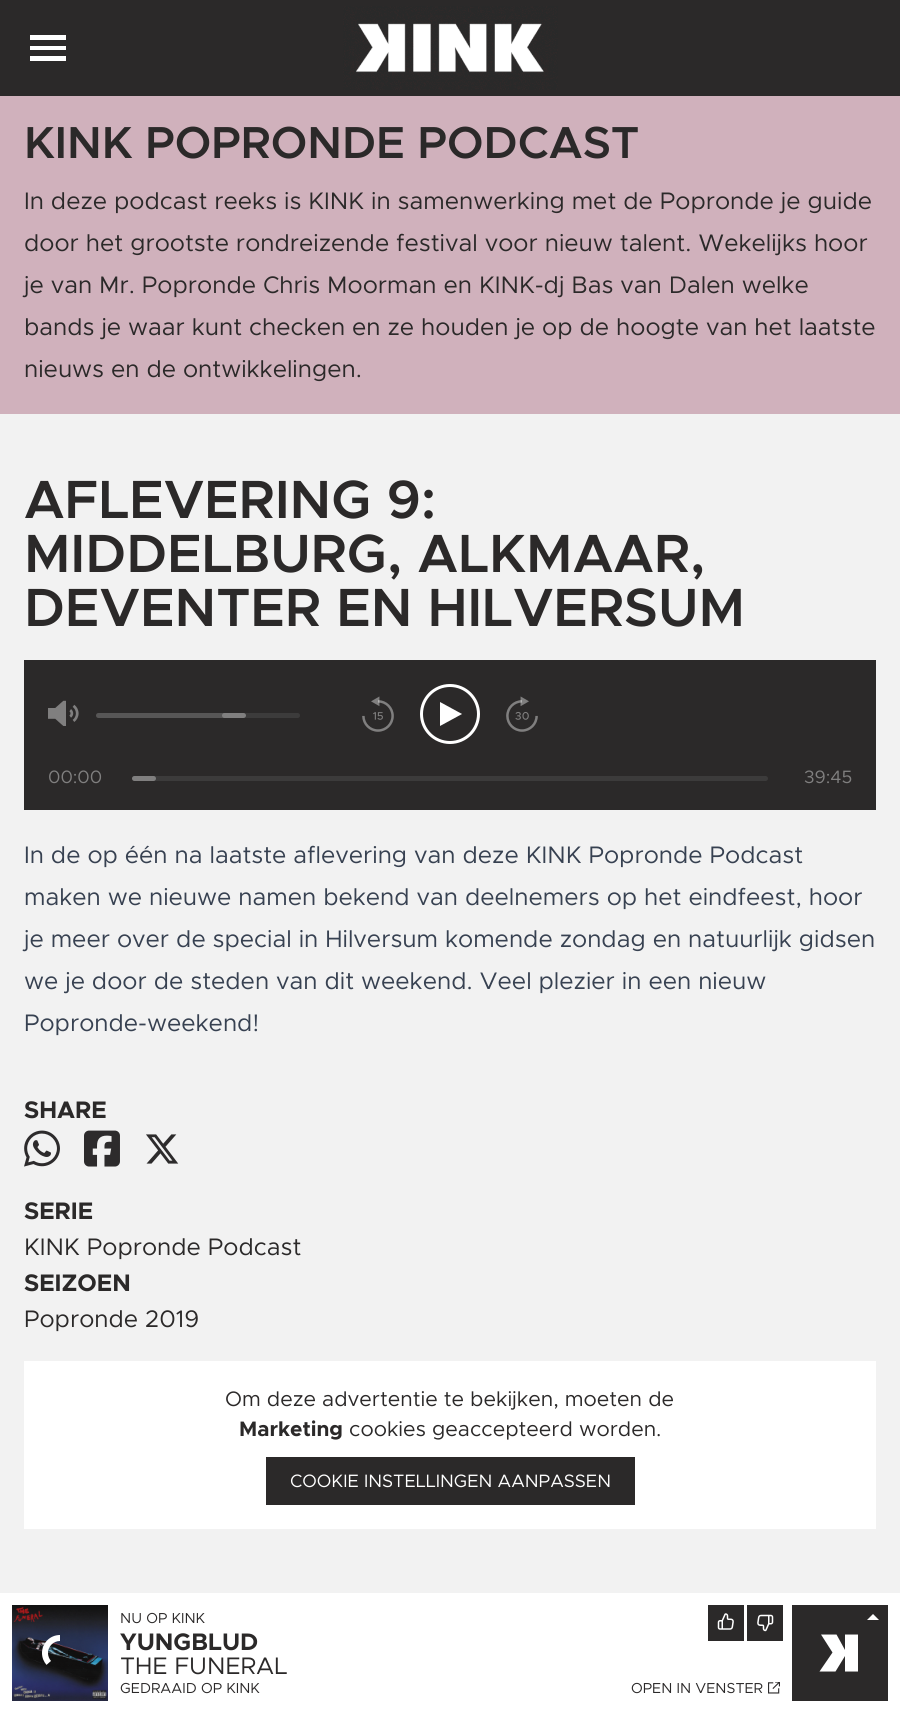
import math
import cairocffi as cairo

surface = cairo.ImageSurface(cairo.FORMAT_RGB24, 900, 1712)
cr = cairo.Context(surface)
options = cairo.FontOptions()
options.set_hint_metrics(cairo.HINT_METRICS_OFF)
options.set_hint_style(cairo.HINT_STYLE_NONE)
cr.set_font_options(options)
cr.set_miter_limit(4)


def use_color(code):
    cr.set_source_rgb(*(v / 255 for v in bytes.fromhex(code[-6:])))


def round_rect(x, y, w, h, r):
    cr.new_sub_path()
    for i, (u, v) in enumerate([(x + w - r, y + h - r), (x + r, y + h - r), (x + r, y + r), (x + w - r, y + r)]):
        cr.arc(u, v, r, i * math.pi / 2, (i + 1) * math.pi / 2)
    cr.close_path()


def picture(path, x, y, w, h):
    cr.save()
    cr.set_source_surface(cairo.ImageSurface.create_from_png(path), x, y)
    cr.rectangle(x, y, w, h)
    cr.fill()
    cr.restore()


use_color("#f2f2f2")
cr.paint()
use_color("#2b2929")
cr.rectangle(0, 0, 900, 96)
cr.fill()
use_color("#ffffff")
cr.rectangle(30, 35, 36, 5)
cr.fill()
cr.rectangle(30, 46, 36, 4)
cr.fill()
cr.rectangle(30, 56, 36, 5)
cr.fill()
picture("img1.png", 343, 6, 215, 84)
use_color("#d0b1bc")
cr.rectangle(0, 96, 900, 318)
cr.fill()
cr.select_font_face("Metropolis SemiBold")
cr.set_font_size(45)
use_color("#2b2929")
cr.move_to(24, 158)
cr.show_text("KINK POPRONDE PODCAST")
cr.select_font_face("Metropolis")
cr.set_font_size(24)
cr.move_to(24, 209)
cr.show_text("In deze podcast reeks is KINK in samenwerking met de Popronde je guide")
cr.move_to(24, 251)
cr.show_text("door het grootste rondreizende festival voor nieuw talent. Wekelijks hoor")
cr.move_to(24, 293)
cr.show_text("je van Mr. Popronde Chris Moorman en KINK-dj Bas van Dalen welke")
cr.move_to(24, 335)
cr.show_text("bands je waar kunt checken en ze houden je op de hoogte van het laatste")
cr.move_to(24, 377)
cr.show_text("nieuws en de ontwikkelingen.")
cr.select_font_face("Metropolis SemiBold")
cr.set_font_size(54)
cr.move_to(24, 518)
cr.show_text("AFLEVERING 9:")
cr.move_to(24, 572)
cr.show_text("MIDDELBURG, ALKMAAR,")
cr.move_to(24, 626)
cr.show_text("DEVENTER EN HILVERSUM")
cr.rectangle(24, 660, 852, 150)
cr.fill()
picture("img2.png", 48, 700, 31, 26)
use_color("#575656")
cr.new_path()
cr.move_to(98.5, 713)
cr.line_to(239, 713)
cr.line_to(239, 718)
cr.line_to(98.5, 718)
cr.curve_to(97, 718, 96, 717, 96, 715.5)
cr.curve_to(96, 714, 97, 713, 98.5, 713)
cr.close_path()
cr.fill()
use_color("#3c3b3b")
cr.new_path()
cr.move_to(239, 713)
cr.line_to(297.5, 713)
cr.curve_to(299, 713, 300, 714, 300, 715.5)
cr.curve_to(300, 717, 299, 718, 297.5, 718)
cr.line_to(239, 718)
cr.close_path()
cr.fill()
use_color("#807f7f")
round_rect(222, 713, 24, 5, 2.5)
cr.fill()
picture("img3.png", 362, 696, 32, 36)
cr.arc(450, 714, 28.5, 0, 2 * math.pi)
use_color("#ffffff")
cr.set_line_width(3)
cr.stroke()
cr.new_path()
cr.move_to(440, 702)
cr.line_to(462, 714)
cr.line_to(440, 726)
cr.close_path()
cr.fill()
picture("img4.png", 506, 696, 32, 36)
cr.select_font_face("Metropolis")
cr.set_font_size(18)
use_color("#807f7f")
cr.move_to(48, 783)
cr.show_text("00:00")
use_color("#3c3b3b")
round_rect(132, 776, 636, 5, 2.5)
cr.fill()
use_color("#807f7f")
round_rect(132, 776, 24, 5, 2.5)
cr.fill()
cr.move_to(804, 783)
cr.show_text("39:45")
cr.set_font_size(24)
use_color("#374151")
cr.move_to(24, 863)
cr.show_text("In de op één na laatste aflevering van deze KINK Popronde Podcast")
cr.move_to(24, 905)
cr.show_text("maken we nieuwe namen bekend van deelnemers op het eindfeest, hoor")
cr.move_to(24, 947)
cr.show_text("je meer over de special in Hilversum komende zondag en natuurlijk gidsen")
cr.move_to(24, 989)
cr.show_text("we je door de steden van dit weekend. Veel plezier in een nieuw")
cr.move_to(24, 1031)
cr.show_text("Popronde-weekend!")
cr.select_font_face("Metropolis", cairo.FONT_SLANT_NORMAL, cairo.FONT_WEIGHT_BOLD)
use_color("#2b2929")
cr.move_to(24, 1118)
cr.show_text("SHARE")
picture("img5.png", 24, 1130, 36, 37)
picture("img6.png", 84, 1130, 36, 37)
picture("img7.png", 146, 1134, 33, 30)
cr.move_to(24, 1219)
cr.show_text("SERIE")
cr.select_font_face("Metropolis")
cr.move_to(24, 1255)
cr.show_text("KINK Popronde Podcast")
cr.select_font_face("Metropolis", cairo.FONT_SLANT_NORMAL, cairo.FONT_WEIGHT_BOLD)
cr.move_to(24, 1291)
cr.show_text("SEIZOEN")
cr.select_font_face("Metropolis")
cr.move_to(24, 1327)
cr.show_text("Popronde 2019")
use_color("#ffffff")
cr.rectangle(24, 1361, 852, 168)
cr.fill()
cr.set_font_size(21)
use_color("#2b2929")
cr.move_to(225, 1406)
cr.show_text("Om deze advertentie te bekijken, moeten de")
cr.select_font_face("Metropolis", cairo.FONT_SLANT_NORMAL, cairo.FONT_WEIGHT_BOLD)
cr.move_to(239, 1436)
cr.show_text("Marketing")
cr.select_font_face("Metropolis")
cr.move_to(349, 1436)
cr.show_text("cookies geaccepteerd worden.")
cr.rectangle(266, 1457, 369, 48)
cr.fill()
cr.set_font_size(18)
use_color("#ffffff")
cr.move_to(290, 1487)
cr.show_text("COOKIE INSTELLINGEN AANPASSEN")
cr.rectangle(0, 1593, 900, 119)
cr.fill()
picture("img8.png", 12, 1605, 96, 96)
picture("img9.png", 42, 1635, 18, 30)
use_color("#2b2929")
cr.rectangle(708, 1605, 36, 36)
cr.fill()
picture("img10.png", 717, 1613, 17, 17)
cr.rectangle(747, 1605, 36, 36)
cr.fill()
picture("img11.png", 757, 1614, 17, 18)
cr.rectangle(792, 1605, 96, 96)
cr.fill()
use_color("#ffffff")
cr.new_path()
cr.move_to(858, 1671.5)
cr.line_to(858, 1634.5)
cr.line_to(845, 1634.5)
cr.line_to(845, 1650)
cr.line_to(836.5, 1634.5)
cr.line_to(821, 1634.5)
cr.line_to(832.5, 1652.5)
cr.line_to(819.5, 1671.5)
cr.line_to(835.5, 1671.5)
cr.line_to(845, 1656)
cr.line_to(845, 1671.5)
cr.close_path()
cr.move_to(867, 1620)
cr.line_to(879, 1620)
cr.line_to(873, 1614)
cr.close_path()
cr.fill()
cr.set_font_size(14.5)
use_color("#2b2929")
cr.move_to(120, 1623)
cr.show_text("NU OP KINK")
cr.select_font_face("Metropolis", cairo.FONT_SLANT_NORMAL, cairo.FONT_WEIGHT_BOLD)
cr.set_font_size(24)
cr.move_to(120, 1650)
cr.show_text("YUNGBLUD")
cr.select_font_face("Metropolis")
cr.move_to(120, 1674)
cr.show_text("THE FUNERAL")
cr.set_font_size(14.5)
cr.move_to(120, 1693)
cr.show_text("GEDRAAID OP KINK")
cr.move_to(631, 1693)
cr.show_text("OPEN IN VENSTER")
picture("img12.png", 768, 1682, 12, 12)
surface.write_to_png("result.png")
